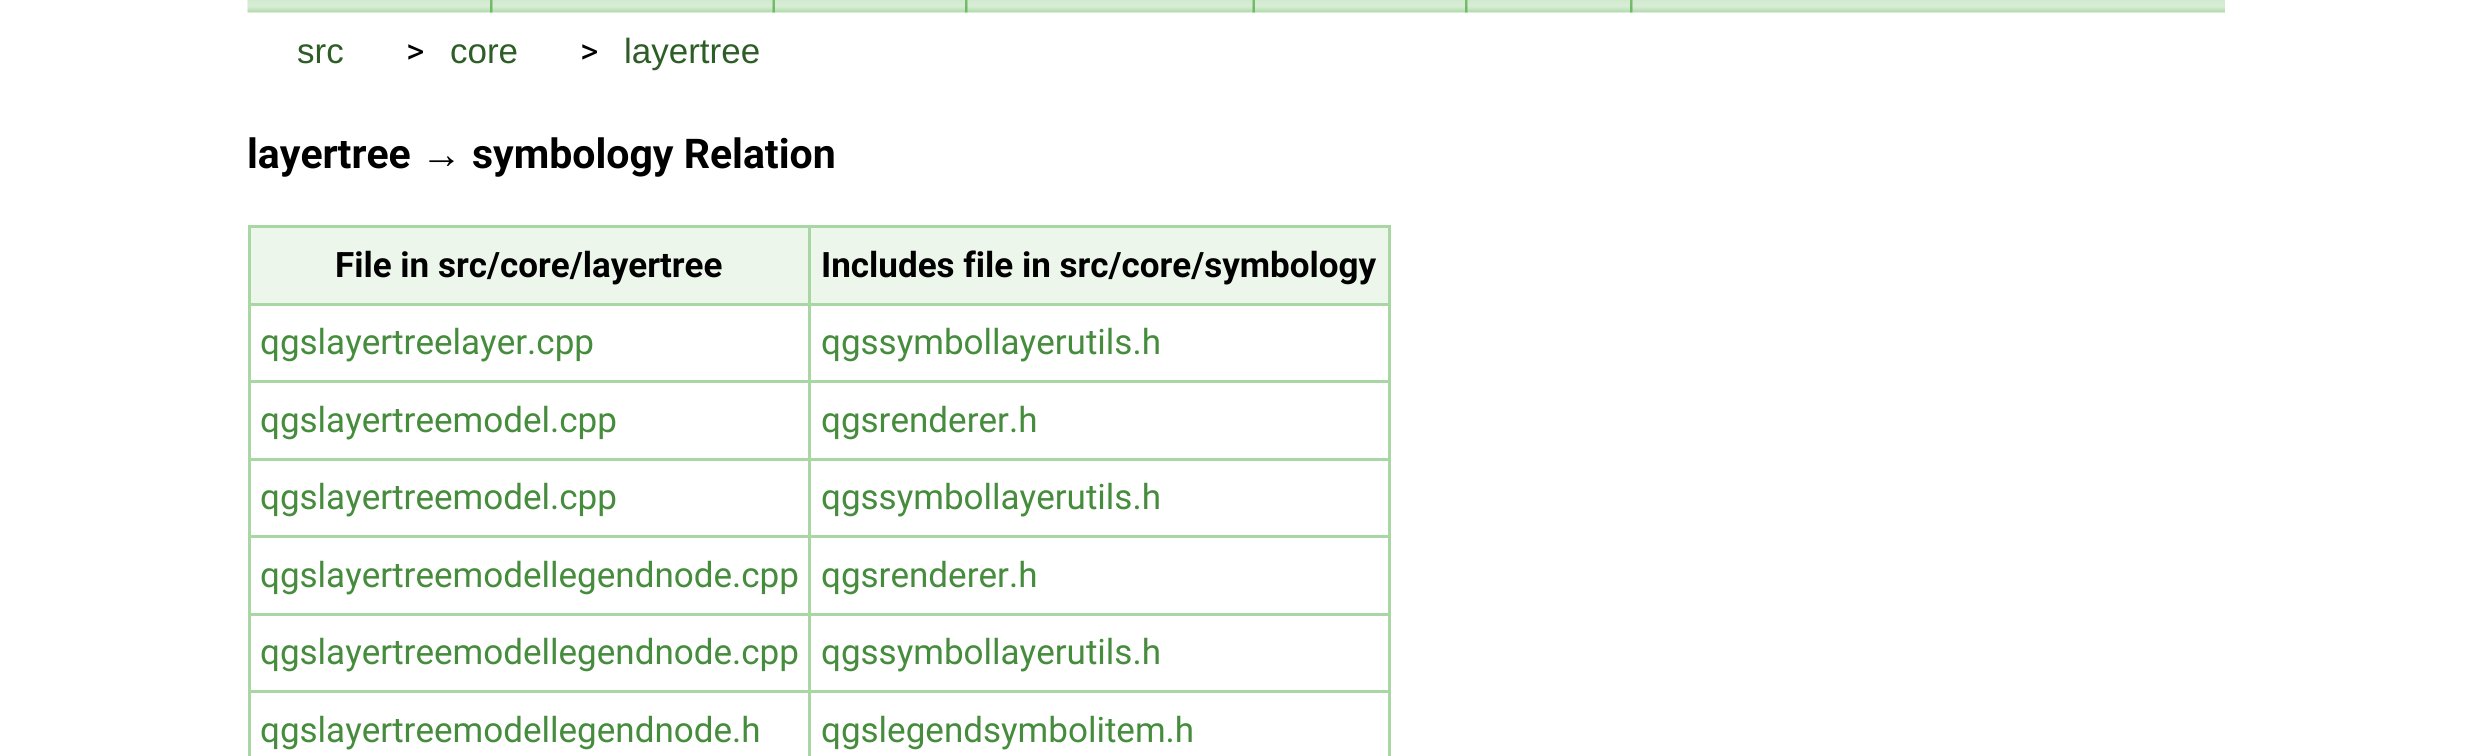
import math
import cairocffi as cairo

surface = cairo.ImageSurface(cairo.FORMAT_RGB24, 2471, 756)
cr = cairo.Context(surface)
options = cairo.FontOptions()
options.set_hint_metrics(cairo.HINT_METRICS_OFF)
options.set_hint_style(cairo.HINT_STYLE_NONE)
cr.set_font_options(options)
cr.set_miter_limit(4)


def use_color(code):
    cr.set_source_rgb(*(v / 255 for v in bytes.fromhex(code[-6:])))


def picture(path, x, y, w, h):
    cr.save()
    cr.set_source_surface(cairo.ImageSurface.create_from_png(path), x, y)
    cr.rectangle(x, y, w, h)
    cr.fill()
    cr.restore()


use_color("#ffffff")
cr.paint()
picture("img1.png", 247, 0, 1978, 13)
picture("img2.png", 490, 0, 3, 13)
picture("img3.png", 772, 0, 3, 13)
picture("img2.png", 965, 0, 3, 13)
picture("img3.png", 1252, 0, 3, 13)
picture("img2.png", 1465, 0, 3, 13)
picture("img2.png", 1630, 0, 3, 13)
cr.select_font_face("Liberation Sans")
cr.set_font_size(35)
use_color("#2e5d28")
cr.move_to(297, 63)
cr.show_text("src")
cr.select_font_face("Roboto")
use_color("#000000")
cr.move_to(406, 63)
cr.show_text(">")
cr.select_font_face("Liberation Sans")
use_color("#2e5d28")
cr.move_to(450, 63)
cr.show_text("core")
cr.select_font_face("Roboto")
use_color("#000000")
cr.move_to(580, 63)
cr.show_text(">")
cr.select_font_face("Liberation Sans")
use_color("#2e5d28")
cr.move_to(624, 63)
cr.show_text("layertree")
cr.select_font_face("Roboto", cairo.FONT_SLANT_NORMAL, cairo.FONT_WEIGHT_BOLD)
cr.set_font_size(41)
use_color("#000000")
cr.move_to(247, 168)
cr.show_text("layertree")
cr.select_font_face("Liberation Sans", cairo.FONT_SLANT_NORMAL, cairo.FONT_WEIGHT_BOLD)
cr.move_to(421, 168)
cr.show_text("→")
cr.select_font_face("Roboto", cairo.FONT_SLANT_NORMAL, cairo.FONT_WEIGHT_BOLD)
cr.move_to(472, 168)
cr.show_text("symbology Relation")
use_color("#a9d7a3")
cr.rectangle(248, 225, 1142, 3)
cr.fill()
cr.rectangle(1388, 225, 3, 531)
cr.fill()
cr.rectangle(248, 225, 3, 531)
cr.fill()
use_color("#edf6eb")
cr.rectangle(251, 228, 557, 75)
cr.fill()
cr.set_font_size(35)
use_color("#000000")
cr.move_to(335, 277)
cr.show_text("File in src/core/layertree")
use_color("#edf6eb")
cr.rectangle(811, 228, 577, 75)
cr.fill()
use_color("#000000")
cr.move_to(821, 277)
cr.show_text("Includes file in src/core/symbology")
use_color("#a9d7a3")
cr.rectangle(248, 303, 1142, 3)
cr.fill()
cr.select_font_face("Roboto")
use_color("#468c3d")
cr.move_to(260, 354)
cr.show_text("qgslayertreelayer.cpp")
cr.move_to(821, 354)
cr.show_text("qgssymbollayerutils.h")
use_color("#a9d7a3")
cr.rectangle(248, 380, 1142, 3)
cr.fill()
use_color("#468c3d")
cr.move_to(260, 432)
cr.show_text("qgslayertreemodel.cpp")
cr.move_to(821, 432)
cr.show_text("qgsrenderer.h")
use_color("#a9d7a3")
cr.rectangle(248, 458, 1142, 3)
cr.fill()
use_color("#468c3d")
cr.move_to(260, 509)
cr.show_text("qgslayertreemodel.cpp")
cr.move_to(821, 509)
cr.show_text("qgssymbollayerutils.h")
use_color("#a9d7a3")
cr.rectangle(248, 535, 1142, 3)
cr.fill()
use_color("#468c3d")
cr.move_to(260, 587)
cr.show_text("qgslayertreemodellegendnode.cpp")
cr.move_to(821, 587)
cr.show_text("qgsrenderer.h")
use_color("#a9d7a3")
cr.rectangle(248, 613, 1142, 3)
cr.fill()
use_color("#468c3d")
cr.move_to(260, 664)
cr.show_text("qgslayertreemodellegendnode.cpp")
cr.move_to(821, 664)
cr.show_text("qgssymbollayerutils.h")
use_color("#a9d7a3")
cr.rectangle(248, 690, 1142, 3)
cr.fill()
use_color("#468c3d")
cr.move_to(260, 742)
cr.show_text("qgslayertreemodellegendnode.h")
use_color("#a9d7a3")
cr.rectangle(808, 225, 3, 531)
cr.fill()
use_color("#468c3d")
cr.move_to(821, 742)
cr.show_text("qgslegendsymbolitem.h")
surface.write_to_png("result.png")
